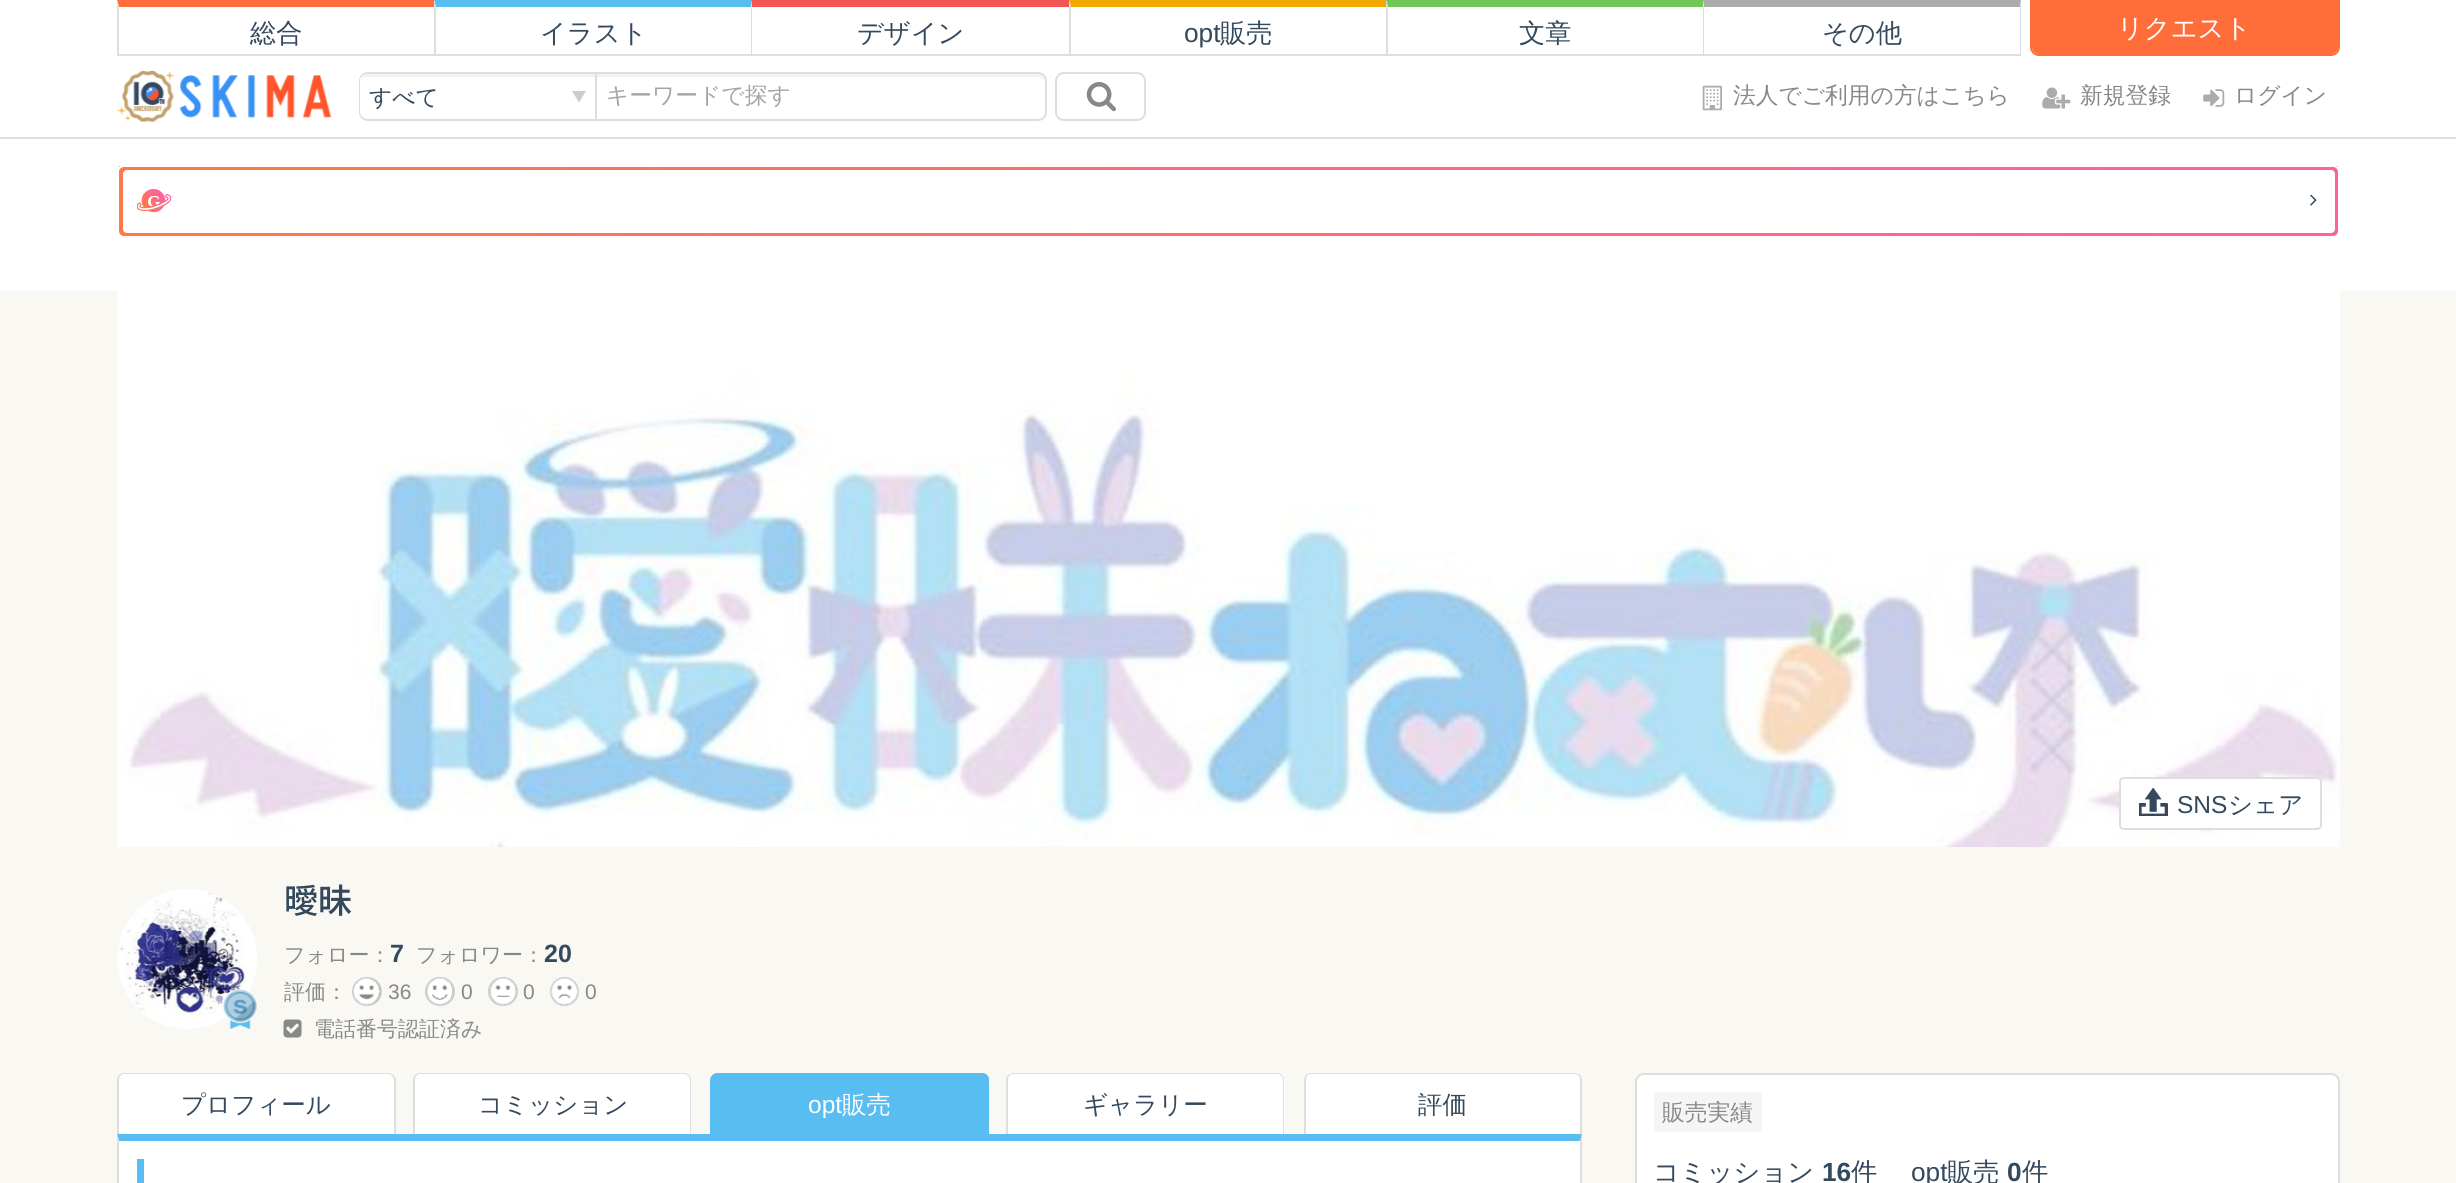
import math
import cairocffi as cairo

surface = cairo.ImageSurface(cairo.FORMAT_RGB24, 2456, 1183)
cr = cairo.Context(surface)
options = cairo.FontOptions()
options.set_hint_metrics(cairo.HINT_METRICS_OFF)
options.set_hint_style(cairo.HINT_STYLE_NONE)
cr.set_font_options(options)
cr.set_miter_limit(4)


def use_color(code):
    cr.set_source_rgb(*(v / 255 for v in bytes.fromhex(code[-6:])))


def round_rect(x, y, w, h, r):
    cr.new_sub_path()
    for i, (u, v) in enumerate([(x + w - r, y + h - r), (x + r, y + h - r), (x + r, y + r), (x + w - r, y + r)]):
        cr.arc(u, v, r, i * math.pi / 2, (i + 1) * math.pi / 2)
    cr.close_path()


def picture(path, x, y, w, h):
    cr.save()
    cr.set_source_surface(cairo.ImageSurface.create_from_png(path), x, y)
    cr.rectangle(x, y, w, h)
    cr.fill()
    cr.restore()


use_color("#ffffff")
cr.paint()
use_color("#dedede")
cr.rectangle(0, 137, 2456, 2)
cr.fill()
use_color("#ff6e3a")
cr.new_path()
cr.move_to(117, 0)
cr.line_to(434, 0)
cr.line_to(434, 7)
cr.line_to(119, 7)
cr.close_path()
cr.fill()
use_color("#dedede")
cr.rectangle(117, 54, 1586, 2)
cr.fill()
cr.new_path()
cr.move_to(117, 56)
cr.line_to(117, 0)
cr.line_to(119, 7)
cr.line_to(119, 54)
cr.close_path()
cr.fill()
cr.select_font_face("WenQuanYi Zen Hei Medium")
cr.set_font_size(26.25)
use_color("#34495e")
cr.move_to(250, 42)
cr.show_text("総合")
use_color("#58bdf0")
cr.new_path()
cr.move_to(434, 0)
cr.line_to(751, 0)
cr.line_to(751, 7)
cr.line_to(436, 7)
cr.close_path()
cr.fill()
use_color("#dedede")
cr.new_path()
cr.move_to(434, 56)
cr.line_to(434, 0)
cr.line_to(436, 7)
cr.line_to(436, 54)
cr.close_path()
cr.fill()
use_color("#34495e")
cr.move_to(540, 42)
cr.show_text("イラスト")
use_color("#f25454")
cr.new_path()
cr.move_to(751, 0)
cr.line_to(1069, 0)
cr.line_to(1069, 7)
cr.line_to(752, 7)
cr.close_path()
cr.fill()
use_color("#dedede")
cr.new_path()
cr.move_to(751, 56)
cr.line_to(751, 0)
cr.line_to(752, 7)
cr.line_to(752, 54)
cr.close_path()
cr.fill()
use_color("#34495e")
cr.move_to(857, 42)
cr.show_text("デザイン")
use_color("#f2a900")
cr.new_path()
cr.move_to(1069, 0)
cr.line_to(1386, 0)
cr.line_to(1386, 7)
cr.line_to(1071, 7)
cr.close_path()
cr.fill()
use_color("#dedede")
cr.new_path()
cr.move_to(1069, 56)
cr.line_to(1069, 0)
cr.line_to(1071, 7)
cr.line_to(1071, 54)
cr.close_path()
cr.fill()
cr.select_font_face("Liberation Sans")
use_color("#34495e")
cr.move_to(1184, 42)
cr.show_text("opt")
cr.select_font_face("WenQuanYi Zen Hei Medium")
cr.move_to(1220, 42)
cr.show_text("販売")
use_color("#70c753")
cr.new_path()
cr.move_to(1386, 0)
cr.line_to(1703, 0)
cr.line_to(1703, 7)
cr.line_to(1388, 7)
cr.close_path()
cr.fill()
use_color("#dedede")
cr.new_path()
cr.move_to(1386, 56)
cr.line_to(1386, 0)
cr.line_to(1388, 7)
cr.line_to(1388, 54)
cr.close_path()
cr.fill()
use_color("#34495e")
cr.move_to(1519, 42)
cr.show_text("文章")
use_color("#ababab")
cr.new_path()
cr.move_to(1703, 0)
cr.line_to(2021, 0)
cr.line_to(2020, 7)
cr.line_to(1704, 7)
cr.close_path()
cr.fill()
use_color("#dedede")
cr.new_path()
cr.move_to(2021, 0)
cr.line_to(2021, 56)
cr.line_to(2020, 54)
cr.line_to(2020, 7)
cr.close_path()
cr.fill()
cr.rectangle(1703, 54, 318, 2)
cr.fill()
cr.new_path()
cr.move_to(1703, 56)
cr.line_to(1703, 0)
cr.line_to(1704, 7)
cr.line_to(1704, 54)
cr.close_path()
cr.fill()
use_color("#34495e")
cr.move_to(1822, 42)
cr.show_text("その他")
use_color("#ff6e3a")
cr.new_path()
cr.move_to(2032, 7)
cr.line_to(2338, 7)
cr.line_to(2338, 47)
cr.curve_to(2338, 51, 2335, 54, 2331, 54)
cr.line_to(2039, 54)
cr.curve_to(2035, 54, 2032, 51, 2032, 47)
cr.close_path()
cr.fill()
cr.new_path()
cr.move_to(2031, 1)
cr.line_to(2339, 1)
cr.line_to(2339, 47)
cr.curve_to(2339, 51.5, 2335.5, 55, 2331, 55)
cr.line_to(2039, 55)
cr.curve_to(2034.5, 55, 2031, 51.5, 2031, 47)
cr.close_path()
cr.stroke()
cr.rectangle(2030, 2, 310, 5)
cr.fill()
use_color("#ffffff")
cr.move_to(2117, 37)
cr.show_text("リクエスト")
picture("img1.png", 117, 70, 215, 52)
use_color("#cccccc")
cr.new_path()
cr.move_to(579, 102.5)
cr.line_to(572, 91)
cr.line_to(586, 91)
cr.close_path()
cr.fill()
use_color("#f2f2f2")
cr.new_path()
cr.move_to(368, 77)
cr.line_to(595, 77)
cr.line_to(595, 74)
cr.line_to(368, 74)
cr.curve_to(364, 74, 361, 77, 361, 81)
cr.curve_to(362, 78, 365, 77, 368, 77)
cr.close_path()
cr.fill()
use_color("#dedede")
cr.set_fill_rule(cairo.FILL_RULE_EVEN_ODD)
cr.new_path()
cr.move_to(368, 72)
cr.line_to(595, 72)
cr.line_to(595, 121)
cr.line_to(368, 121)
cr.curve_to(363, 121, 359, 117, 359, 112)
cr.line_to(359, 80)
cr.curve_to(359, 76, 363, 72, 368, 72)
cr.close_path()
cr.move_to(368, 74)
cr.line_to(595, 74)
cr.line_to(595, 119)
cr.line_to(368, 119)
cr.curve_to(364, 119, 360, 116, 360, 112)
cr.line_to(360, 80)
cr.curve_to(360, 77, 364, 74, 368, 74)
cr.close_path()
cr.fill()
cr.set_font_size(22.75)
use_color("#34495e")
cr.move_to(369, 105)
cr.show_text("すべて")
use_color("#f2f2f2")
cr.set_fill_rule(cairo.FILL_RULE_WINDING)
cr.new_path()
cr.move_to(597, 77)
cr.line_to(1038, 77)
cr.curve_to(1042, 77, 1045, 80, 1045, 84)
cr.curve_to(1045, 80, 1044, 75, 1039, 74)
cr.line_to(597, 74)
cr.close_path()
cr.fill()
cr.new_path()
cr.move_to(596, 73)
cr.line_to(1038, 73)
cr.curve_to(1042.5, 73, 1046, 76.5, 1046, 81)
cr.line_to(1046, 112)
cr.curve_to(1046, 116.5, 1042.5, 120, 1038, 120)
cr.line_to(596, 120)
cr.close_path()
use_color("#dedede")
cr.stroke()
use_color("#a4a4a4")
cr.move_to(606, 103)
cr.show_text("キーワードで探す")
round_rect(1056, 73, 89, 47, 8)
use_color("#dedede")
cr.stroke()
picture("img2.png", 1086, 82, 30, 30)
picture("img3.png", 1702, 85, 20, 26)
use_color("#888888")
cr.move_to(1733, 103)
cr.show_text("法人でご利用の方はこちら")
picture("img4.png", 2042, 87, 29, 22)
cr.move_to(2080, 103)
cr.show_text("新規登録")
picture("img5.png", 2203, 89, 22, 18)
cr.move_to(2234, 103)
cr.show_text("ログイン")
gradient = cairo.LinearGradient(560, 762, 1897, -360)
gradient.add_color_stop_rgba(0, 1, 0.475, 0.282, 1)
gradient.add_color_stop_rgba(1, 1, 0.376, 0.627, 1)
cr.set_source(gradient)
cr.rectangle(119, 166, 2219, 70)
cr.fill()
round_rect(118, 166, 2221, 71, 6)
use_color("#ffffff")
cr.stroke()
round_rect(123, 170, 2212, 63, 4)
cr.fill()
picture("img6.png", 137, 189, 35, 24)
picture("img7.png", 2310, 194, 7, 12)
use_color("#f9f8f2")
cr.rectangle(0, 291, 2456, 892)
cr.fill()
picture("img8.png", 117, 291, 2223, 556)
use_color("#ffffff")
round_rect(2120, 778, 201, 51, 4)
cr.fill_preserve()
use_color("#dedede")
cr.stroke()
picture("img9.png", 2139, 788, 29, 28)
cr.select_font_face("Liberation Sans")
cr.set_font_size(24.5)
use_color("#34495e")
cr.move_to(2177, 813)
cr.show_text("SNS")
cr.select_font_face("WenQuanYi Zen Hei Medium")
cr.move_to(2228, 813)
cr.show_text("シェア")
picture("img10.png", 117, 889, 140, 140)
picture("img11.png", 222, 988, 36, 41)
cr.select_font_face("Noto Sans JP Medium")
cr.set_font_size(34)
cr.move_to(284, 913)
cr.show_text("曖昧")
cr.select_font_face("WenQuanYi Zen Hei Medium")
cr.set_font_size(21)
use_color("#888888")
cr.move_to(284, 962)
cr.show_text("フォロー：")
cr.select_font_face("Liberation Sans", cairo.FONT_SLANT_NORMAL, cairo.FONT_WEIGHT_BOLD)
cr.set_font_size(25)
use_color("#34495e")
cr.move_to(390, 962)
cr.show_text("7")
cr.select_font_face("WenQuanYi Zen Hei Medium")
cr.set_font_size(21)
use_color("#888888")
cr.move_to(416, 962)
cr.show_text("フォロワー：")
cr.select_font_face("Liberation Sans", cairo.FONT_SLANT_NORMAL, cairo.FONT_WEIGHT_BOLD)
cr.set_font_size(25)
use_color("#34495e")
cr.move_to(544, 962)
cr.show_text("20")
cr.select_font_face("WenQuanYi Zen Hei Medium")
cr.set_font_size(21)
use_color("#888888")
cr.move_to(284, 999)
cr.show_text("評価：")
round_rect(353, 978, 28, 27, 13.5)
cr.fill_preserve()
use_color("#cccccc")
cr.stroke()
picture("img12.png", 353, 978, 27, 27)
cr.select_font_face("Liberation Sans")
use_color("#888888")
cr.move_to(388, 999)
cr.show_text("36")
round_rect(426, 978, 28, 27, 13.5)
cr.fill_preserve()
use_color("#cccccc")
cr.stroke()
picture("img13.png", 427, 978, 27, 27)
use_color("#888888")
cr.move_to(461, 999)
cr.show_text("0")
round_rect(489, 978, 28, 27, 13.5)
cr.fill_preserve()
use_color("#cccccc")
cr.stroke()
picture("img14.png", 489, 978, 28, 27)
use_color("#888888")
cr.move_to(523, 999)
cr.show_text("0")
cr.new_path()
cr.arc(564.5, 991.5, 13.5, 0, 2 * math.pi)
cr.fill_preserve()
use_color("#cccccc")
cr.stroke()
picture("img15.png", 551, 978, 27, 27)
use_color("#888888")
cr.move_to(585, 999)
cr.show_text("0")
picture("img16.png", 283, 1019, 19, 19)
cr.select_font_face("WenQuanYi Zen Hei Medium")
cr.move_to(314, 1036)
cr.show_text("電話番号認証済み")
use_color("#ffffff")
cr.new_path()
cr.move_to(124, 1073)
cr.line_to(389, 1073)
cr.curve_to(393, 1073, 396, 1076, 396, 1080)
cr.line_to(396, 1134)
cr.line_to(117, 1134)
cr.line_to(117, 1080)
cr.curve_to(117, 1076, 120, 1073, 124, 1073)
cr.close_path()
cr.fill()
use_color("#dedede")
cr.set_fill_rule(cairo.FILL_RULE_EVEN_ODD)
cr.new_path()
cr.move_to(124, 1073)
cr.line_to(388, 1073)
cr.curve_to(392, 1073, 396, 1076, 396, 1080)
cr.line_to(396, 1134)
cr.line_to(117, 1134)
cr.line_to(117, 1080)
cr.curve_to(117, 1076, 120, 1073, 124, 1073)
cr.close_path()
cr.move_to(124, 1074)
cr.line_to(388, 1074)
cr.curve_to(391, 1074, 394, 1077, 394, 1080)
cr.line_to(394, 1134)
cr.line_to(119, 1134)
cr.line_to(119, 1080)
cr.curve_to(119, 1077, 121, 1074, 124, 1074)
cr.close_path()
cr.fill()
cr.set_font_size(24.5)
use_color("#34495e")
cr.move_to(181, 1113)
cr.show_text("プロフィール")
use_color("#ffffff")
cr.new_path()
cr.move_to(420, 1073)
cr.line_to(684, 1073)
cr.curve_to(688, 1073, 691, 1076, 691, 1080)
cr.line_to(691, 1134)
cr.line_to(413, 1134)
cr.line_to(413, 1080)
cr.curve_to(413, 1076, 416, 1073, 420, 1073)
cr.close_path()
cr.fill()
use_color("#dedede")
cr.new_path()
cr.move_to(420, 1073)
cr.line_to(684, 1073)
cr.curve_to(688, 1073, 691, 1076, 691, 1080)
cr.line_to(691, 1134)
cr.line_to(413, 1134)
cr.line_to(413, 1080)
cr.curve_to(413, 1076, 416, 1073, 420, 1073)
cr.close_path()
cr.move_to(420, 1074)
cr.line_to(684, 1074)
cr.curve_to(687, 1074, 690, 1077, 690, 1080)
cr.line_to(690, 1134)
cr.line_to(415, 1134)
cr.line_to(415, 1080)
cr.curve_to(415, 1077, 417, 1074, 420, 1074)
cr.close_path()
cr.fill()
use_color("#34495e")
cr.move_to(478, 1113)
cr.show_text("コミッション")
use_color("#58bdf0")
cr.new_path()
cr.move_to(718, 1073)
cr.line_to(982, 1073)
cr.curve_to(986, 1073, 989, 1076, 989, 1080)
cr.line_to(989, 1134)
cr.line_to(711, 1134)
cr.line_to(711, 1080)
cr.curve_to(711, 1076, 714, 1073, 718, 1073)
cr.close_path()
cr.fill()
cr.new_path()
cr.move_to(718, 1073)
cr.line_to(982, 1073)
cr.curve_to(986, 1073, 989, 1076, 989, 1080)
cr.line_to(989, 1134)
cr.line_to(710, 1134)
cr.line_to(710, 1080)
cr.curve_to(710, 1076, 714, 1073, 718, 1073)
cr.close_path()
cr.move_to(718, 1074)
cr.line_to(982, 1074)
cr.curve_to(985, 1074, 987, 1077, 987, 1080)
cr.line_to(987, 1134)
cr.line_to(712, 1134)
cr.line_to(712, 1080)
cr.curve_to(712, 1077, 715, 1074, 718, 1074)
cr.close_path()
cr.fill()
cr.select_font_face("Liberation Sans")
use_color("#ffffff")
cr.move_to(808, 1113)
cr.show_text("opt")
cr.select_font_face("WenQuanYi Zen Hei Medium")
cr.move_to(842, 1113)
cr.show_text("販売")
cr.new_path()
cr.move_to(1013, 1073)
cr.line_to(1278, 1073)
cr.curve_to(1282, 1073, 1285, 1076, 1285, 1080)
cr.line_to(1285, 1134)
cr.line_to(1006, 1134)
cr.line_to(1006, 1080)
cr.curve_to(1006, 1076, 1009, 1073, 1013, 1073)
cr.close_path()
cr.fill()
use_color("#dedede")
cr.new_path()
cr.move_to(1013, 1073)
cr.line_to(1278, 1073)
cr.curve_to(1281, 1073, 1284, 1076, 1284, 1080)
cr.line_to(1284, 1134)
cr.line_to(1006, 1134)
cr.line_to(1006, 1080)
cr.curve_to(1006, 1076, 1009, 1073, 1013, 1073)
cr.close_path()
cr.move_to(1013, 1074)
cr.line_to(1278, 1074)
cr.curve_to(1280, 1074, 1283, 1077, 1283, 1080)
cr.line_to(1283, 1134)
cr.line_to(1008, 1134)
cr.line_to(1008, 1080)
cr.curve_to(1008, 1077, 1010, 1074, 1013, 1074)
cr.close_path()
cr.fill()
use_color("#34495e")
cr.move_to(1083, 1113)
cr.show_text("ギャラリー")
use_color("#ffffff")
cr.new_path()
cr.move_to(1311, 1073)
cr.line_to(1575, 1073)
cr.curve_to(1579, 1073, 1582, 1076, 1582, 1080)
cr.line_to(1582, 1134)
cr.line_to(1304, 1134)
cr.line_to(1304, 1080)
cr.curve_to(1304, 1076, 1307, 1073, 1311, 1073)
cr.close_path()
cr.fill()
use_color("#dedede")
cr.new_path()
cr.move_to(1311, 1073)
cr.line_to(1575, 1073)
cr.curve_to(1579, 1073, 1582, 1076, 1582, 1080)
cr.line_to(1582, 1134)
cr.line_to(1304, 1134)
cr.line_to(1304, 1080)
cr.curve_to(1304, 1076, 1307, 1073, 1311, 1073)
cr.close_path()
cr.move_to(1311, 1074)
cr.line_to(1575, 1074)
cr.curve_to(1578, 1074, 1580, 1077, 1580, 1080)
cr.line_to(1580, 1134)
cr.line_to(1306, 1134)
cr.line_to(1306, 1080)
cr.curve_to(1306, 1077, 1308, 1074, 1311, 1074)
cr.close_path()
cr.fill()
use_color("#34495e")
cr.move_to(1418, 1113)
cr.show_text("評価")
use_color("#ffffff")
cr.rectangle(119, 1141, 1461, 42)
cr.fill()
use_color("#58bdf0")
cr.set_fill_rule(cairo.FILL_RULE_WINDING)
cr.new_path()
cr.move_to(119, 1141)
cr.line_to(1580, 1141)
cr.line_to(1580, 1142)
cr.line_to(1582, 1134)
cr.line_to(117, 1134)
cr.close_path()
cr.fill()
use_color("#dedede")
cr.new_path()
cr.move_to(1582, 1134)
cr.line_to(1580, 1142)
cr.line_to(1580, 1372)
cr.curve_to(1580, 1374, 1579, 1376, 1578, 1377)
cr.line_to(1579, 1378)
cr.curve_to(1581, 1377, 1582, 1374, 1582, 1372)
cr.close_path()
cr.fill()
cr.new_path()
cr.move_to(119, 1141)
cr.line_to(119, 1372)
cr.curve_to(119, 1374, 120, 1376, 121, 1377)
cr.line_to(120, 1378)
cr.line_to(117, 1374)
cr.line_to(117, 1134)
cr.close_path()
cr.fill()
use_color("#58bdf0")
cr.rectangle(137, 1159, 7, 24)
cr.fill()
use_color("#ffffff")
round_rect(1636, 1074, 703, 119, 8)
cr.fill_preserve()
use_color("#dedede")
cr.stroke()
use_color("#f5f5f5")
cr.rectangle(1654, 1092, 108, 40)
cr.fill()
cr.set_font_size(22.75)
use_color("#888888")
cr.move_to(1662, 1120)
cr.show_text("販売実績")
cr.set_font_size(26.25)
use_color("#34495e")
cr.move_to(1653, 1181)
cr.show_text("コミッション")
cr.select_font_face("Liberation Sans", cairo.FONT_SLANT_NORMAL, cairo.FONT_WEIGHT_BOLD)
cr.move_to(1822, 1181)
cr.show_text("16")
cr.select_font_face("WenQuanYi Zen Hei Medium")
cr.move_to(1851, 1181)
cr.show_text("件")
cr.select_font_face("Liberation Sans")
cr.move_to(1911, 1181)
cr.show_text("opt")
cr.select_font_face("WenQuanYi Zen Hei Medium")
cr.move_to(1947, 1181)
cr.show_text("販売")
cr.select_font_face("Liberation Sans", cairo.FONT_SLANT_NORMAL, cairo.FONT_WEIGHT_BOLD)
cr.move_to(2007, 1181)
cr.show_text("0")
cr.select_font_face("WenQuanYi Zen Hei Medium")
cr.move_to(2022, 1181)
cr.show_text("件")
surface.write_to_png("result.png")
